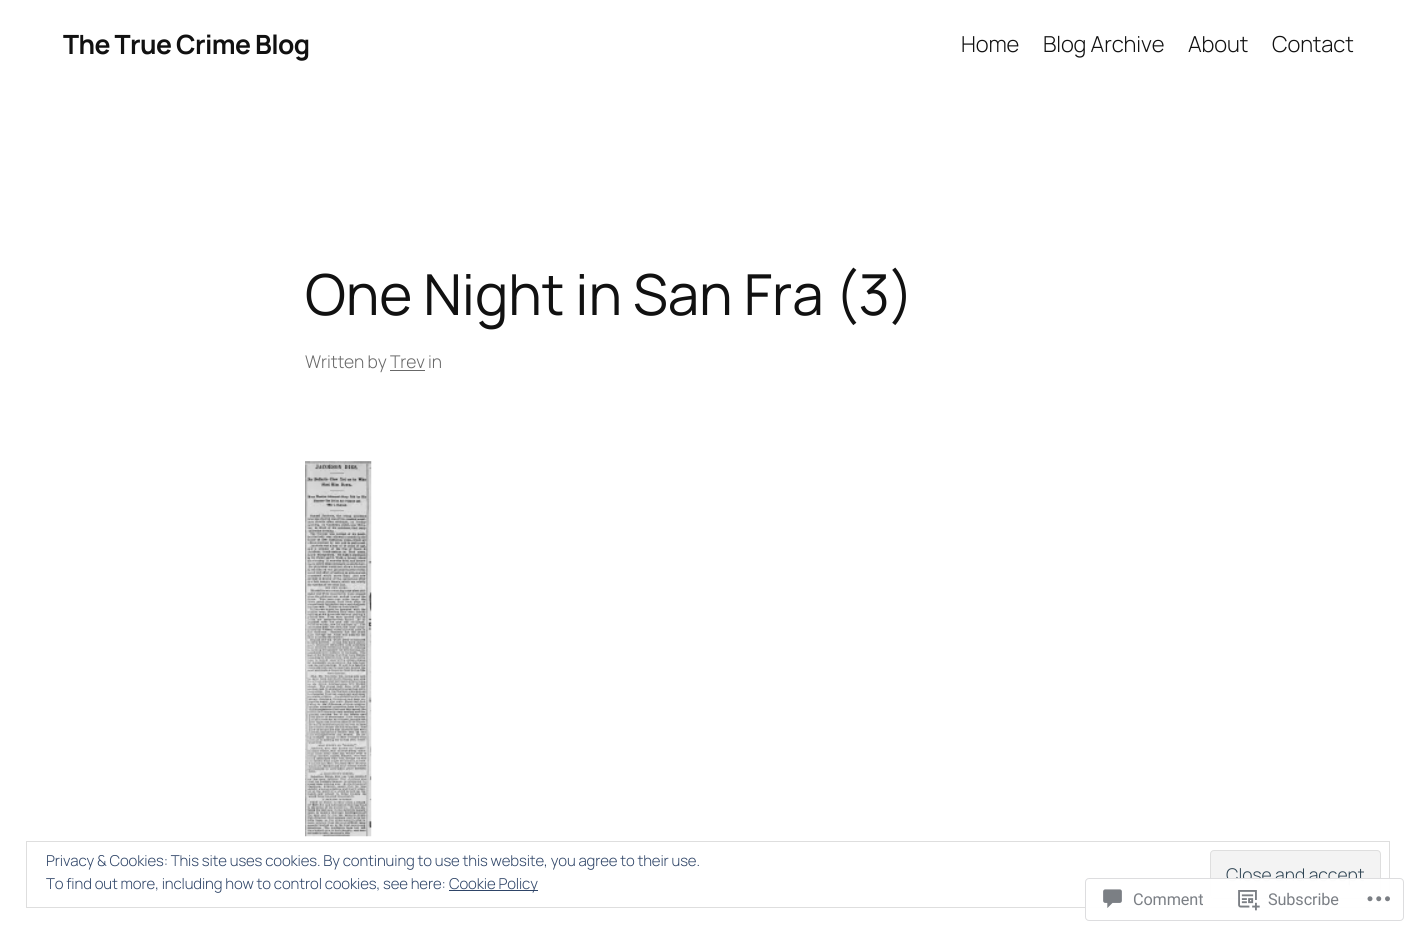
import math
import cairocffi as cairo

surface = cairo.ImageSurface(cairo.FORMAT_RGB24, 1416, 933)
cr = cairo.Context(surface)
options = cairo.FontOptions()
options.set_hint_metrics(cairo.HINT_METRICS_OFF)
options.set_hint_style(cairo.HINT_STYLE_NONE)
cr.set_font_options(options)
cr.set_miter_limit(4)


def use_color(code):
    cr.set_source_rgb(*(v / 255 for v in bytes.fromhex(code[-6:])))


def spaced_text(x, y, s, letter, word):
    cr.move_to(x, y)
    for ch in s:
        cr.show_text(ch)
        cr.rel_move_to(letter + word * (ch == ' '), 0)


def round_rect(x, y, w, h, r):
    cr.new_sub_path()
    for i, (u, v) in enumerate([(x + w - r, y + h - r), (x + r, y + h - r), (x + r, y + r), (x + w - r, y + r)]):
        cr.arc(u, v, r, i * math.pi / 2, (i + 1) * math.pi / 2)
    cr.close_path()


def picture(path, x, y, w, h):
    cr.save()
    cr.set_source_surface(cairo.ImageSurface.create_from_png(path), x, y)
    cr.rectangle(x, y, w, h)
    cr.fill()
    cr.restore()


use_color("#ffffff")
cr.paint()
cr.select_font_face("Manrope", cairo.FONT_SLANT_NORMAL, cairo.FONT_WEIGHT_BOLD)
cr.set_font_size(26.5)
use_color("#111111")
spaced_text(63, 54, "The True Crime Blog", -0.6, 0)
cr.select_font_face("Manrope Light")
cr.set_font_size(22)
spaced_text(961, 52, "Home", -0.12, 0)
spaced_text(1043, 52, "Blog Archive", -0.12, 0)
spaced_text(1188, 52, "About", -0.12, 0)
spaced_text(1272, 52, "Contact", -0.12, 0)
cr.select_font_face("Manrope")
cr.set_font_size(56.5)
spaced_text(305, 315, "One Night in San Fra (3)", -0.12, 0)
cr.select_font_face("Manrope Light")
cr.set_font_size(17.5)
use_color("#686868")
spaced_text(305, 368, "Written by Trev in", -0.12, 0)
cr.rectangle(390, 370, 35, 1)
cr.fill()
picture("img1.png", 305, 461, 67, 376)
cr.rectangle(26.5, 841.5, 1363, 66)
use_color("#dedede")
cr.set_line_width(1)
cr.stroke()
cr.set_font_size(15)
use_color("#2e4467")
spaced_text(46, 866, "Privacy & Cookies: This site uses cookies. By continuing to use this website, you agree to their use.", -0.12, 0)
spaced_text(46, 889, "To find out more, including how to control cookies, see here:", -0.12, 0)
cr.rectangle(449, 890, 89, 1)
cr.fill()
spaced_text(449, 889, "Cookie Policy", -0.12, 0)
use_color("#f3f3f3")
round_rect(1210.5, 850.5, 170, 48, 3.5)
cr.fill_preserve()
use_color("#dedede")
cr.stroke()
cr.set_font_size(17.5)
use_color("#2e4453")
cr.move_to(1226, 881)
cr.show_text("Close and accept")
cr.set_source_rgba(1, 1, 1, 0.98)
round_rect(1085, 878, 319, 43, 4)
cr.fill()
round_rect(1085.5, 878.5, 318, 42, 3.5)
cr.set_source_rgba(0.863, 0.863, 0.871, 0.98)
cr.stroke()
picture("img2.png", 1103, 889, 19, 19)
cr.select_font_face("Roboto")
cr.set_font_size(16.25)
use_color("#7b7f85")
spaced_text(1133, 905, "Comment", -0.12, 0)
picture("img3.png", 1238, 890, 22, 21)
spaced_text(1268, 905, "Subscribe", -0.12, 0)
picture("img4.png", 1367, 896, 23, 6)
surface.write_to_png("result.png")
